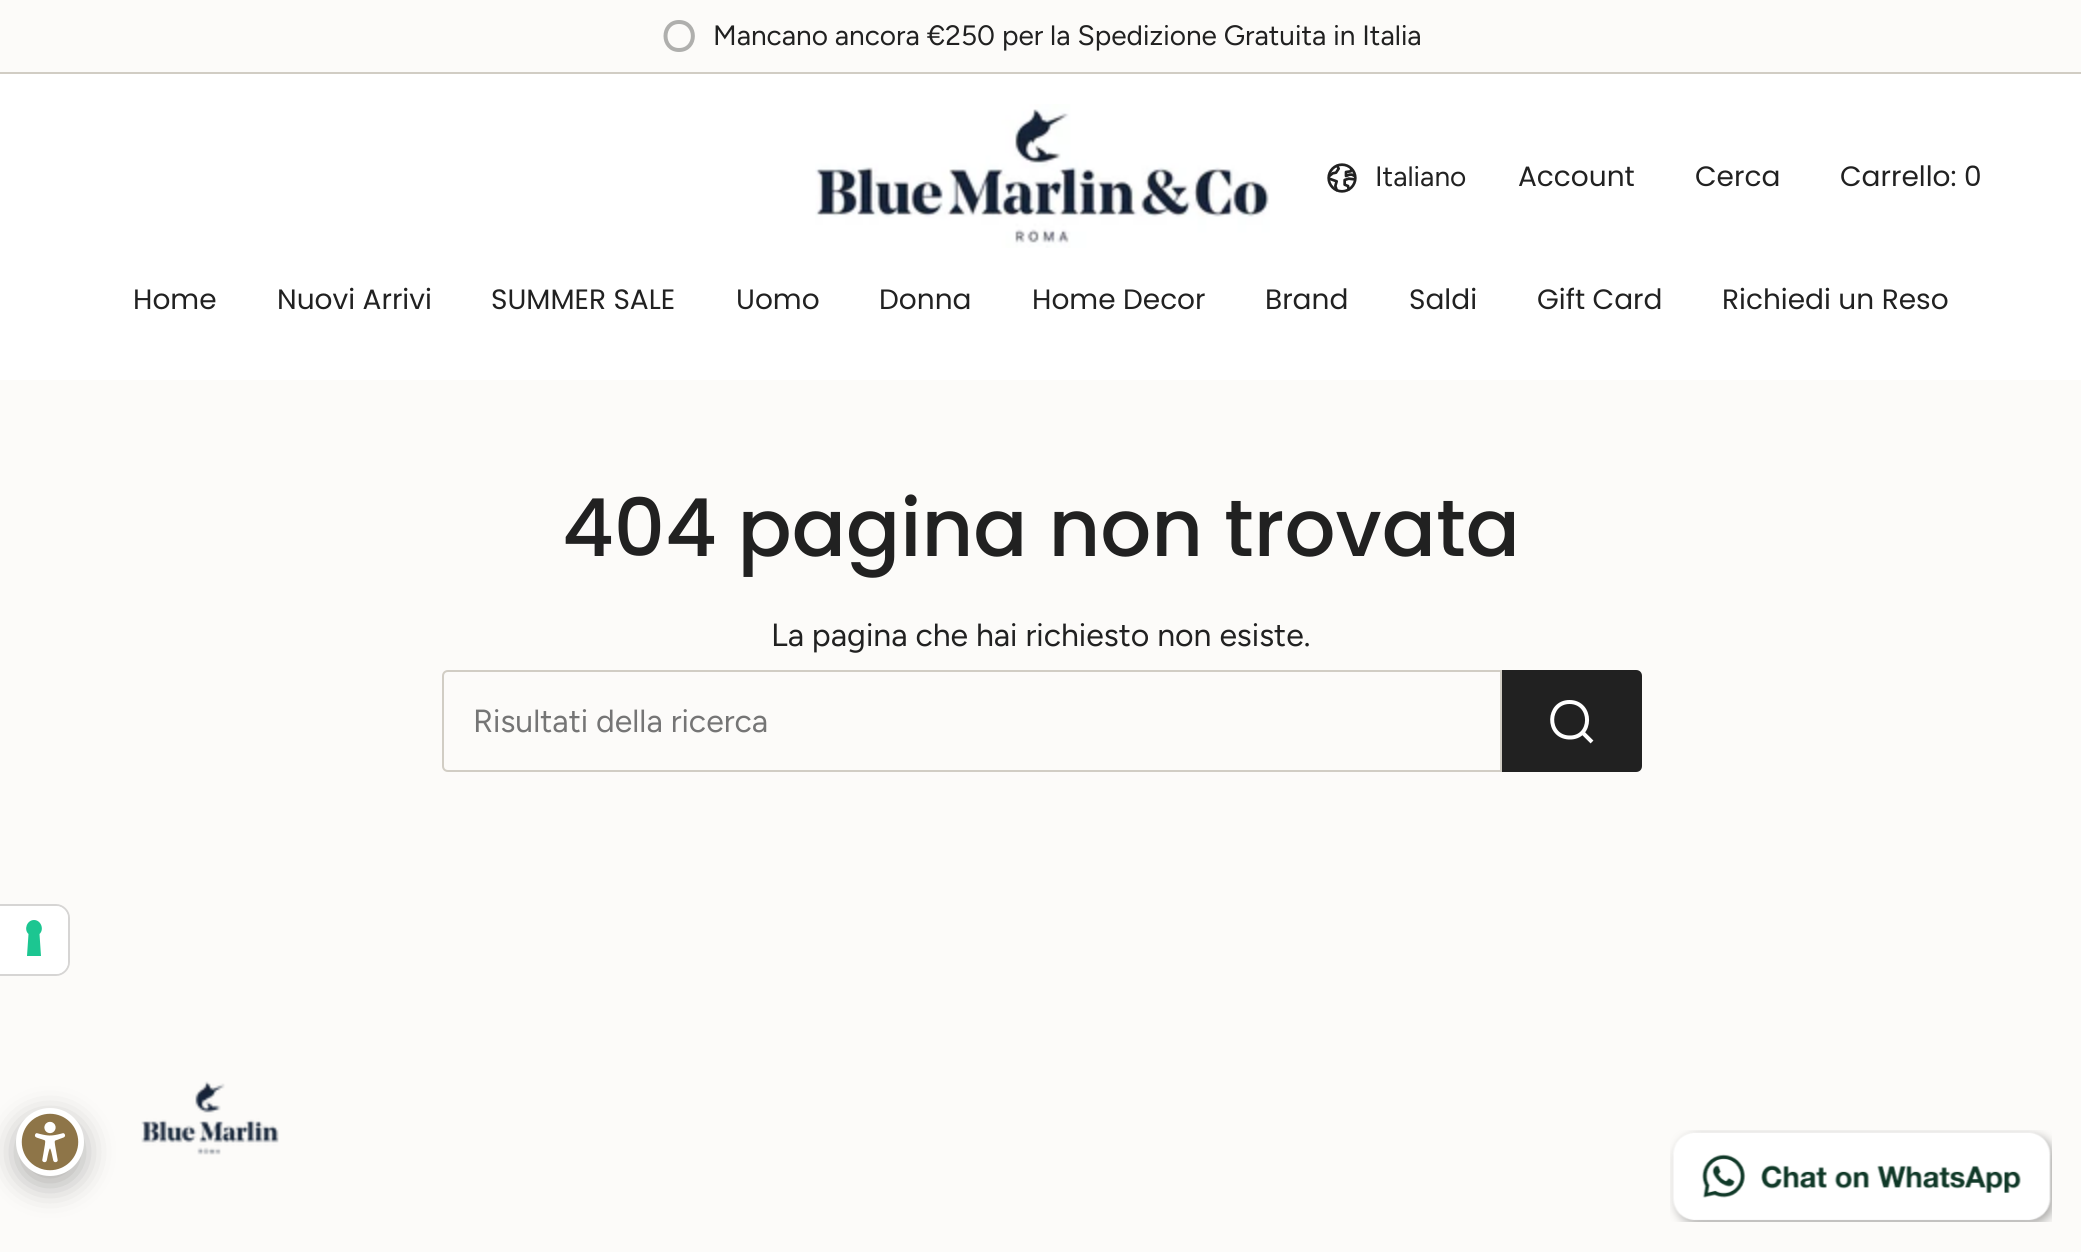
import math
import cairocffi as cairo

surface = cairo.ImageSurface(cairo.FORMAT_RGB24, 2081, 1252)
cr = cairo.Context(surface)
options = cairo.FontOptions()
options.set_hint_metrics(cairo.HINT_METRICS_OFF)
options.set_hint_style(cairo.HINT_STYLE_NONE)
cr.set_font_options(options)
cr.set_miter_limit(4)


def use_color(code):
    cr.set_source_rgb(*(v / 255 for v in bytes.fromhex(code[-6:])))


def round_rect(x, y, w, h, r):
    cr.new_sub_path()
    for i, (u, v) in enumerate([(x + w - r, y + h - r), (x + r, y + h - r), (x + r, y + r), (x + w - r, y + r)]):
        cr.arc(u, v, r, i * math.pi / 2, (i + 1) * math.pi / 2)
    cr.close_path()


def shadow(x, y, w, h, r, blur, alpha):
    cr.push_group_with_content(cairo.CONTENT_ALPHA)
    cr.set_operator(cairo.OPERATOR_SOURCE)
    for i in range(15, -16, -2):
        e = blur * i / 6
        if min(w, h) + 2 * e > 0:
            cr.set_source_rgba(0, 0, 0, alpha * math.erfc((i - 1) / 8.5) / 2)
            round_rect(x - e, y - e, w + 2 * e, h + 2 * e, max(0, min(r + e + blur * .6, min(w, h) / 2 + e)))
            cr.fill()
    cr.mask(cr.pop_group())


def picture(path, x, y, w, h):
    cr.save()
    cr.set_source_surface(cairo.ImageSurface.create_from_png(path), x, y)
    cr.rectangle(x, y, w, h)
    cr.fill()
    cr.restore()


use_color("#fcfbf9")
cr.paint()
use_color("#d1cdc4")
cr.rectangle(0, 72, 2081, 2)
cr.fill()
cr.new_path()
cr.move_to(679, 22)
cr.curve_to(661, 22, 661, 50, 679, 50)
cr.curve_to(697.5, 50, 697.5, 22, 679, 22)
cr.close_path()
use_color("#afafad")
cr.set_line_width(4)
cr.stroke()
cr.select_font_face("Figtree")
cr.set_font_size(28)
use_color("#212121")
cr.move_to(713, 45)
cr.show_text("Mancano ancora €250 per la Spedizione Gratuita in Italia")
use_color("#ffffff")
cr.rectangle(0, 74, 2081, 306)
cr.fill()
picture("img1.png", 815, 104, 455, 144)
picture("img2.png", 1327, 163, 30, 30)
use_color("#212121")
cr.move_to(1375, 186)
cr.show_text("Italiano")
cr.select_font_face("Poppins")
cr.move_to(1518, 186)
cr.show_text("Account")
cr.move_to(1695, 186)
cr.show_text("Cerca")
cr.move_to(1840, 186)
cr.show_text("Carrello: 0")
cr.move_to(133, 309)
cr.show_text("Home")
cr.move_to(277, 309)
cr.show_text("Nuovi Arrivi")
cr.move_to(491, 309)
cr.show_text("SUMMER SALE")
cr.move_to(736, 309)
cr.show_text("Uomo")
cr.move_to(879, 309)
cr.show_text("Donna")
cr.move_to(1032, 309)
cr.show_text("Home Decor")
cr.move_to(1265, 309)
cr.show_text("Brand")
cr.move_to(1409, 309)
cr.show_text("Saldi")
cr.move_to(1537, 309)
cr.show_text("Gift Card")
cr.move_to(1722, 309)
cr.show_text("Richiedi un Reso")
cr.select_font_face("Poppins Medium")
cr.set_font_size(80)
cr.move_to(562, 556)
cr.show_text("404 pagina non trovata")
cr.select_font_face("Figtree")
cr.set_font_size(32)
cr.move_to(771, 646)
cr.show_text("La pagina che hai richiesto non esiste.")
cr.new_path()
cr.move_to(448, 671)
cr.line_to(1501, 671)
cr.line_to(1501, 771)
cr.line_to(448, 771)
cr.curve_to(445, 771, 443, 769, 443, 766)
cr.line_to(443, 676)
cr.curve_to(443, 673, 445, 671, 448, 671)
cr.close_path()
use_color("#d1cdc4")
cr.set_line_width(2)
cr.stroke()
use_color("#757575")
cr.move_to(473, 732)
cr.show_text("Risultati della ricerca")
use_color("#212121")
cr.new_path()
cr.move_to(1503, 671)
cr.line_to(1636, 671)
cr.curve_to(1639, 671, 1641, 673, 1641, 676)
cr.line_to(1641, 766)
cr.curve_to(1641, 769, 1639, 771, 1636, 771)
cr.line_to(1503, 771)
cr.close_path()
cr.fill_preserve()
cr.stroke()
cr.new_path()
cr.move_to(1569.5, 702)
cr.curve_to(1593, 702, 1593, 738.5, 1569, 737.5)
cr.curve_to(1546, 736.5, 1547, 702, 1569.5, 702)
cr.close_path()
cr.move_to(1582, 732)
cr.line_to(1592, 742)
use_color("#ffffff")
cr.set_line_width(4)
cr.stroke()
cr.new_path()
cr.move_to(-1, 905)
cr.line_to(56, 905)
cr.curve_to(63, 905, 69, 911, 69, 918)
cr.line_to(69, 962)
cr.curve_to(69, 969, 63, 975, 56, 975)
cr.line_to(-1, 975)
cr.close_path()
use_color("#d6d5d4")
cr.set_line_width(2)
cr.stroke()
use_color("#ffffff")
cr.new_path()
cr.move_to(0, 906)
cr.line_to(56, 906)
cr.curve_to(62.5, 906, 68, 911.5, 68, 918)
cr.line_to(68, 962)
cr.curve_to(68, 968.5, 62.5, 974, 56, 974)
cr.line_to(0, 974)
cr.close_path()
cr.fill()
use_color("#1cc691")
cr.set_fill_rule(cairo.FILL_RULE_EVEN_ODD)
cr.new_path()
cr.move_to(34, 920)
cr.curve_to(41, 920, 44.5, 929.5, 39.5, 934)
cr.line_to(41, 956)
cr.line_to(27, 956)
cr.line_to(28.5, 934)
cr.curve_to(23.5, 929.5, 27, 920, 34, 920)
cr.close_path()
cr.fill()
picture("img3.png", 141, 1081, 138, 74)
picture("img4.png", 1670, 1130, 382, 92)
use_color("#000000")
shadow(16, 1118, 68, 68, 34, 15, 0.3)
picture("img5.png", 16, 1108, 68, 68)
surface.write_to_png("result.png")
